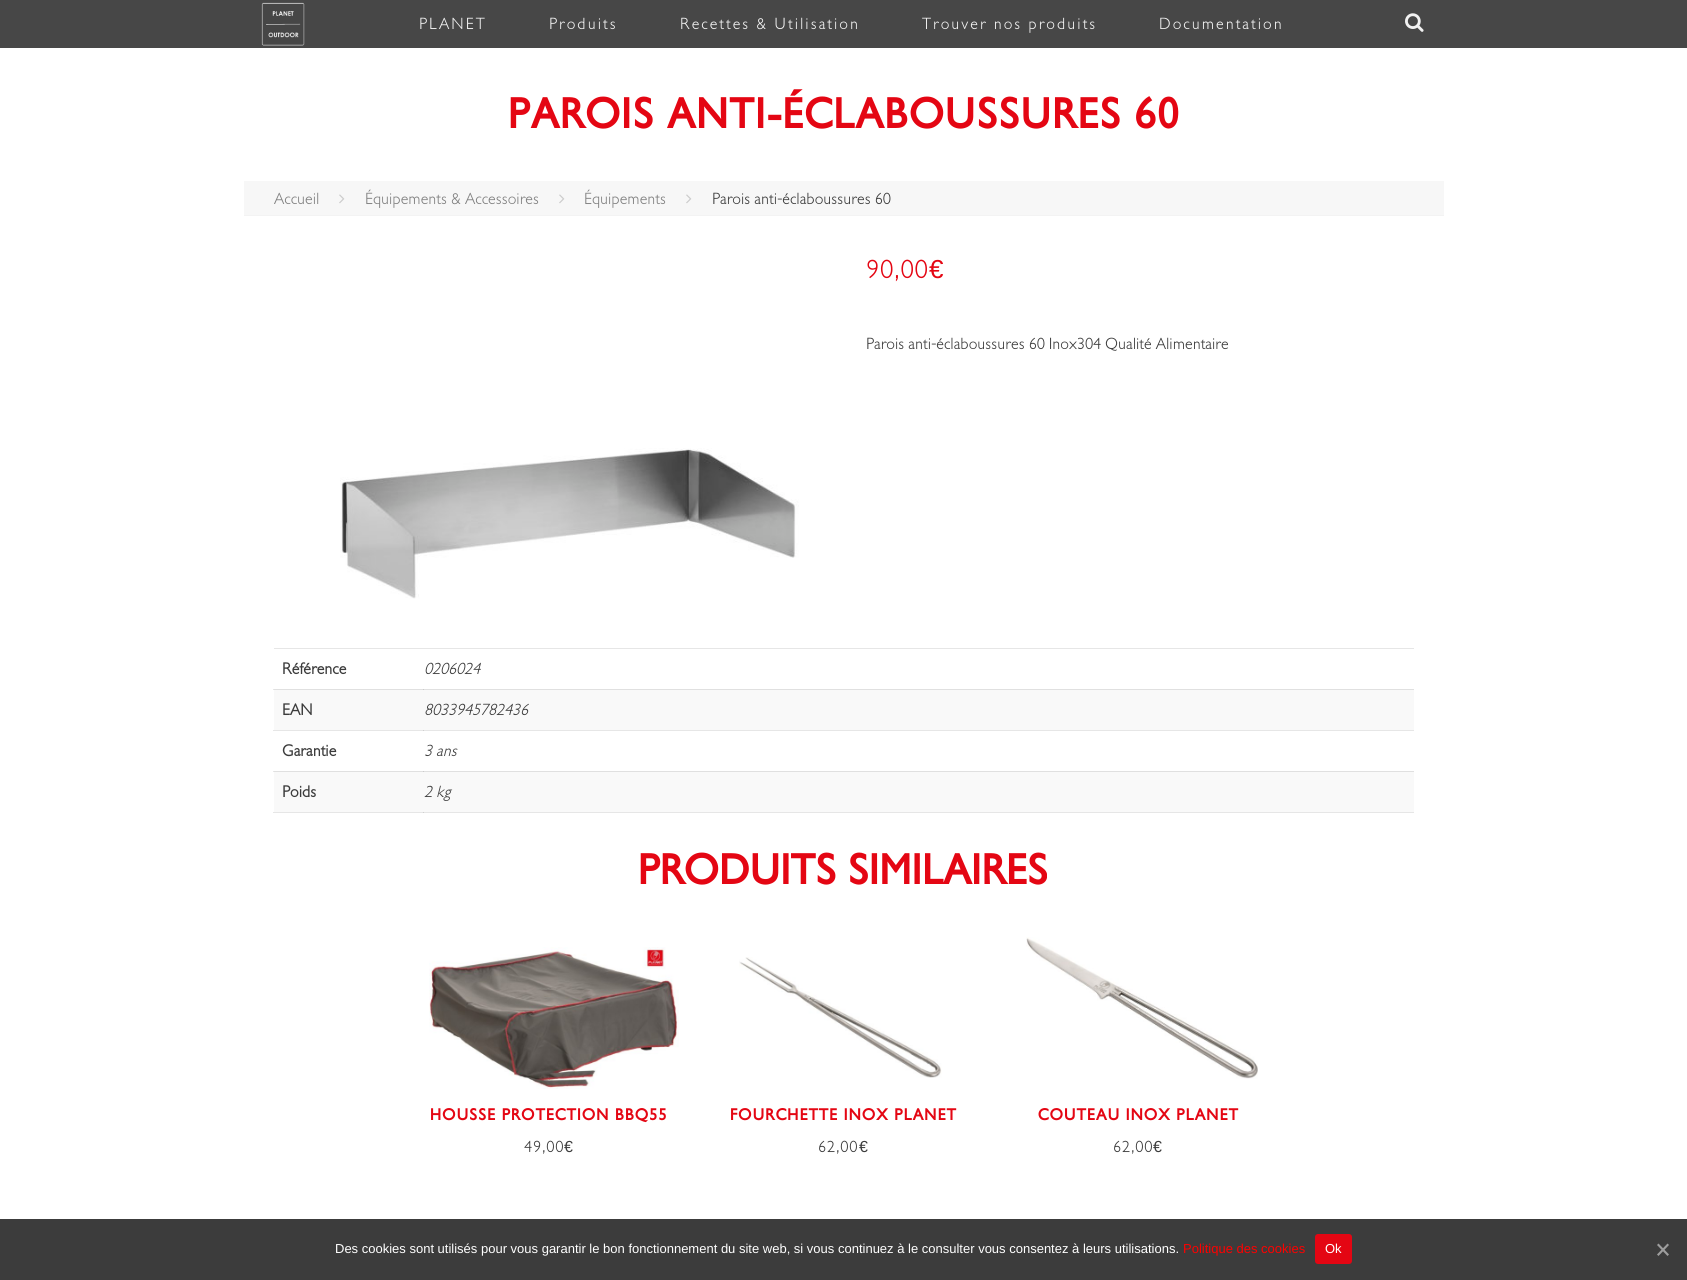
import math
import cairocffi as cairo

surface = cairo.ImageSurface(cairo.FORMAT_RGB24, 1687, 1280)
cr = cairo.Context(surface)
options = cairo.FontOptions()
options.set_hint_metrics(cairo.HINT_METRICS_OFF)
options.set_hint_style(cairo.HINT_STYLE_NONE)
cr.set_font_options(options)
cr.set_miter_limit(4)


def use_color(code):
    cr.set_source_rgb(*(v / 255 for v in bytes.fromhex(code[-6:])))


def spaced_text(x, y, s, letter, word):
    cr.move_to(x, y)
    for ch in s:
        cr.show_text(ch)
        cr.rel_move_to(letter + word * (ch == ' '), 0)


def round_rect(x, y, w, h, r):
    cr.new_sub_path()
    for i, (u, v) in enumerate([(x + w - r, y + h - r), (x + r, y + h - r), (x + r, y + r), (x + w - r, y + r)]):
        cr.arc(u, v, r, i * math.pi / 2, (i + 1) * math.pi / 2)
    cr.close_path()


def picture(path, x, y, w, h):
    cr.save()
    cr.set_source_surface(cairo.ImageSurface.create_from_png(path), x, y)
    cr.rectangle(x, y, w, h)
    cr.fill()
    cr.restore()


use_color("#ffffff")
cr.paint()
use_color("#e6e6e6")
cr.rectangle(273, 689, 1, 1)
cr.fill()
cr.rectangle(273, 730, 1141, 1)
cr.fill()
cr.rectangle(273, 771, 1, 1)
cr.fill()
cr.rectangle(273, 812, 1141, 1)
cr.fill()
use_color("#474747")
cr.rectangle(0, 0, 1687, 48)
cr.fill()
picture("img1.png", 261, 2, 44, 44)
cr.select_font_face("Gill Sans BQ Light")
cr.set_font_size(16)
use_color("#f2f2f2")
spaced_text(419, 29, "PLANET", 2, 0)
spaced_text(549, 29, "Produits", 2, 0)
spaced_text(680, 29, "Recettes & Utilisation", 2, 0)
spaced_text(922, 29, "Trouver nos produits", 2, 0)
spaced_text(1159, 29, "Documentation", 2, 0)
picture("img2.png", 1405, 13, 19, 19)
cr.select_font_face("Gill Sans BQ", cairo.FONT_SLANT_NORMAL, cairo.FONT_WEIGHT_BOLD)
cr.set_font_size(42)
use_color("#e40613")
spaced_text(508, 128, "PAROIS ANTI-ÉCLABOUSSURES 60", 1, 0)
use_color("#f7f7f7")
cr.rectangle(244, 181, 1200, 34)
cr.fill()
use_color("#f3f3f3")
cr.rectangle(244, 215, 1200, 1)
cr.fill()
cr.select_font_face("Gill Sans BQ Light")
cr.set_font_size(16)
use_color("#808080")
cr.move_to(274, 204)
cr.show_text("Accueil")
picture("img3.png", 339, 194, 6, 10)
cr.move_to(365, 204)
cr.show_text("Équipements & Accessoires")
picture("img3.png", 559, 194, 6, 10)
cr.move_to(584, 204)
cr.show_text("Équipements")
picture("img3.png", 686, 194, 6, 10)
use_color("#3c3c3c")
cr.move_to(712, 204)
cr.show_text("Parois anti-éclaboussures 60")
cr.set_font_size(26)
use_color("#e40613")
spaced_text(866, 278, "90,00", 1, 0)
cr.select_font_face("Liberation Sans")
spaced_text(929, 278, "€", 1, 0)
cr.select_font_face("Gill Sans BQ Light")
cr.set_font_size(16)
use_color("#3c3c3c")
cr.move_to(866, 349)
cr.show_text("Parois anti-éclaboussures 60 Inox304 Qualité Alimentaire")
picture("img4.png", 340, 448, 459, 151)
use_color("#e6e6e6")
cr.rectangle(274, 648, 1140, 1)
cr.fill()
cr.select_font_face("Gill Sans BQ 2", cairo.FONT_SLANT_NORMAL, cairo.FONT_WEIGHT_BOLD)
use_color("#3c3c3c")
cr.move_to(282, 674)
cr.show_text("Référence")
use_color("#e0e0e0")
cr.rectangle(274, 689, 1140, 1)
cr.fill()
use_color("#cacaca")
cr.rectangle(423, 689, 1, 1)
cr.fill()
cr.select_font_face("Gill Sans BQ Light", cairo.FONT_SLANT_ITALIC)
use_color("#3c3c3c")
cr.move_to(424, 674)
cr.show_text("0206024")
use_color("#f9f9f9")
cr.rectangle(274, 690, 1140, 40)
cr.fill()
cr.select_font_face("Gill Sans BQ 2", cairo.FONT_SLANT_NORMAL, cairo.FONT_WEIGHT_BOLD)
use_color("#3c3c3c")
cr.move_to(282, 715)
cr.show_text("EAN")
use_color("#cfcfcf")
cr.rectangle(423, 730, 1, 1)
cr.fill()
cr.select_font_face("Gill Sans BQ Light", cairo.FONT_SLANT_ITALIC)
use_color("#3c3c3c")
cr.move_to(424, 715)
cr.show_text("8033945782436")
cr.select_font_face("Gill Sans BQ 2", cairo.FONT_SLANT_NORMAL, cairo.FONT_WEIGHT_BOLD)
cr.move_to(282, 756)
cr.show_text("Garantie")
use_color("#e0e0e0")
cr.rectangle(274, 771, 1140, 1)
cr.fill()
use_color("#cacaca")
cr.rectangle(423, 771, 1, 1)
cr.fill()
cr.select_font_face("Gill Sans BQ Light", cairo.FONT_SLANT_ITALIC)
use_color("#3c3c3c")
cr.move_to(424, 756)
cr.show_text("3 ans")
use_color("#f9f9f9")
cr.rectangle(274, 772, 1140, 40)
cr.fill()
cr.select_font_face("Gill Sans BQ 2", cairo.FONT_SLANT_NORMAL, cairo.FONT_WEIGHT_BOLD)
use_color("#3c3c3c")
cr.move_to(282, 797)
cr.show_text("Poids")
use_color("#cfcfcf")
cr.rectangle(423, 812, 1, 1)
cr.fill()
cr.select_font_face("Gill Sans BQ Light", cairo.FONT_SLANT_ITALIC)
use_color("#3c3c3c")
cr.move_to(424, 797)
cr.show_text("2 kg")
cr.select_font_face("Gill Sans BQ", cairo.FONT_SLANT_NORMAL, cairo.FONT_WEIGHT_BOLD)
cr.set_font_size(42)
use_color("#e40613")
cr.move_to(638, 884)
cr.show_text("PRODUITS SIMILAIRES")
picture("img5.png", 429, 947, 250, 142)
cr.set_font_size(16)
spaced_text(430, 1120, "HOUSSE PROTECTION BBQ55", 1, 0)
cr.select_font_face("Gill Sans BQ Light")
use_color("#3c3c3c")
spaced_text(524, 1152, "49,00", 1, 0)
cr.select_font_face("Liberation Sans")
spaced_text(564, 1152, "€", 1, 0)
picture("img6.png", 739, 957, 203, 121)
cr.select_font_face("Gill Sans BQ", cairo.FONT_SLANT_NORMAL, cairo.FONT_WEIGHT_BOLD)
use_color("#e40613")
spaced_text(730, 1120, "FOURCHETTE INOX PLANET", 1, 0)
cr.select_font_face("Gill Sans BQ Light")
use_color("#3c3c3c")
spaced_text(818, 1152, "62,00", 1, 0)
cr.select_font_face("Liberation Sans")
spaced_text(859, 1152, "€", 1, 0)
picture("img7.png", 1026, 937, 232, 142)
cr.select_font_face("Gill Sans BQ", cairo.FONT_SLANT_NORMAL, cairo.FONT_WEIGHT_BOLD)
use_color("#e40613")
spaced_text(1038, 1120, "COUTEAU INOX PLANET", 1, 0)
cr.select_font_face("Gill Sans BQ Light")
use_color("#3c3c3c")
spaced_text(1113, 1152, "62,00", 1, 0)
cr.select_font_face("Liberation Sans")
spaced_text(1153, 1152, "€", 1, 0)
cr.rectangle(0, 1219, 1687, 61)
cr.fill()
cr.set_font_size(13)
use_color("#ffffff")
cr.move_to(335, 1253)
cr.show_text("Des cookies sont utilisés pour vous garantir le bon fonctionnement du site web, si vous continuez à le consulter vous consentez à leurs utilisations.")
use_color("#ff0000")
cr.move_to(1183, 1253)
cr.show_text("Politique des cookies")
use_color("#e40613")
round_rect(1315, 1234, 37, 30, 3)
cr.fill()
use_color("#ffffff")
cr.move_to(1325, 1253)
cr.show_text("Ok")
use_color("#9e9e9e")
cr.new_path()
cr.move_to(1667.5, 1243.5)
cr.line_to(1669, 1245)
cr.line_to(1658.5, 1256)
cr.line_to(1657, 1254.5)
cr.close_path()
cr.fill()
cr.new_path()
cr.move_to(1657, 1245)
cr.line_to(1658.5, 1243.5)
cr.line_to(1669, 1254.5)
cr.line_to(1667.5, 1256)
cr.close_path()
cr.fill()
surface.write_to_png("result.png")
